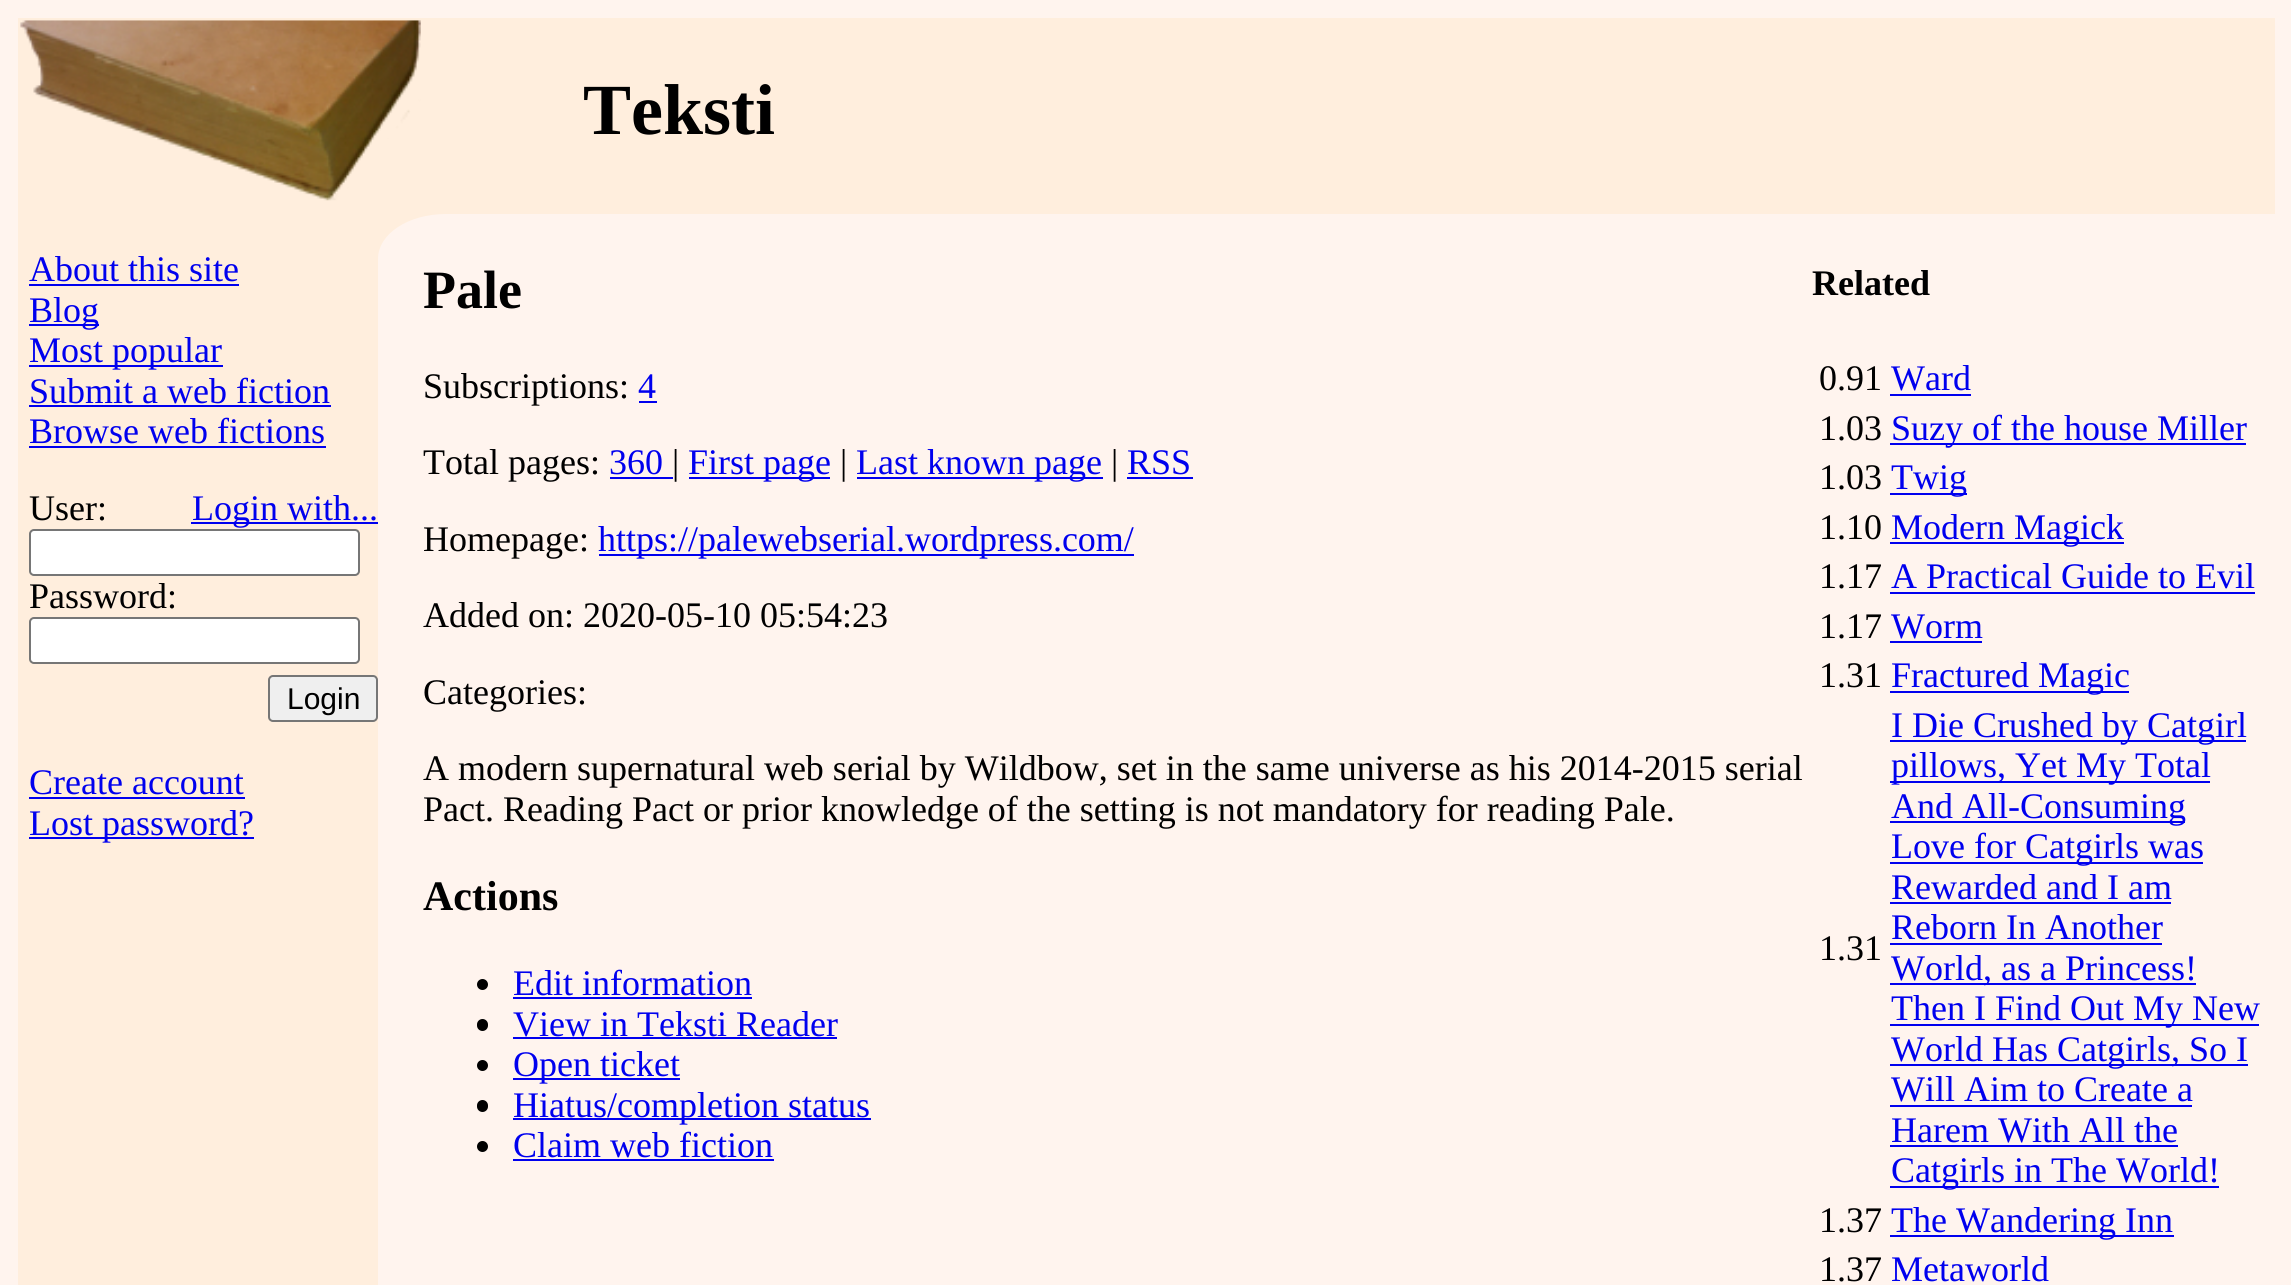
import math
import cairocffi as cairo

surface = cairo.ImageSurface(cairo.FORMAT_RGB24, 2291, 1285)
cr = cairo.Context(surface)
options = cairo.FontOptions()
options.set_hint_metrics(cairo.HINT_METRICS_OFF)
options.set_hint_style(cairo.HINT_STYLE_NONE)
cr.set_font_options(options)
cr.set_miter_limit(4)


def use_color(code):
    cr.set_source_rgb(*(v / 255 for v in bytes.fromhex(code[-6:])))


def round_rect(x, y, w, h, r):
    cr.new_sub_path()
    for i, (u, v) in enumerate([(x + w - r, y + h - r), (x + r, y + h - r), (x + r, y + r), (x + w - r, y + r)]):
        cr.arc(u, v, r, i * math.pi / 2, (i + 1) * math.pi / 2)
    cr.close_path()


def picture(path, x, y, w, h):
    cr.save()
    cr.set_source_surface(cairo.ImageSurface.create_from_png(path), x, y)
    cr.rectangle(x, y, w, h)
    cr.fill()
    cr.restore()


use_color("#fff4ee")
cr.paint()
use_color("#ffeedd")
cr.rectangle(18, 18, 2257, 196)
cr.fill()
picture("img1.png", 20, 20, 401, 181)
cr.select_font_face("Liberation Serif", cairo.FONT_SLANT_NORMAL, cairo.FONT_WEIGHT_BOLD)
cr.set_font_size(72)
use_color("#000000")
cr.move_to(583, 134)
cr.show_text("Teksti")
use_color("#ffeedd")
cr.rectangle(378, 214, 67, 45)
cr.fill()
cr.rectangle(18, 214, 360, 1071)
cr.fill()
cr.select_font_face("Liberation Serif")
cr.set_font_size(36)
use_color("#0000ee")
cr.move_to(29, 281)
cr.show_text("About this site")
cr.rectangle(29, 284, 210, 2)
cr.fill()
cr.rectangle(29, 324, 70, 2)
cr.fill()
cr.move_to(29, 322)
cr.show_text("Blog")
cr.rectangle(29, 365, 194, 2)
cr.fill()
cr.move_to(29, 362)
cr.show_text("Most popular")
cr.move_to(29, 403)
cr.show_text("Submit a web fiction")
cr.rectangle(29, 405, 302, 2)
cr.fill()
cr.move_to(29, 443)
cr.show_text("Browse web fictions")
cr.rectangle(29, 446, 297, 2)
cr.fill()
use_color("#000000")
cr.move_to(29, 520)
cr.show_text("User:")
use_color("#0000ee")
cr.rectangle(191, 522, 187, 2)
cr.fill()
cr.move_to(192, 520)
cr.show_text("Login with...")
use_color("#ffffff")
round_rect(30, 530, 329, 45, 4)
cr.fill_preserve()
use_color("#767676")
cr.stroke()
use_color("#000000")
cr.move_to(29, 608)
cr.show_text("Password:")
use_color("#ffffff")
round_rect(30, 618, 329, 45, 4)
cr.fill_preserve()
use_color("#767676")
cr.stroke()
use_color("#efefef")
round_rect(269, 676, 108, 45, 4)
cr.fill_preserve()
use_color("#767676")
cr.stroke()
cr.select_font_face("Liberation Sans")
cr.set_font_size(30)
use_color("#000000")
cr.move_to(287, 709)
cr.show_text("Login")
cr.select_font_face("Liberation Serif")
cr.set_font_size(36)
use_color("#0000ee")
cr.move_to(29, 794)
cr.show_text("Create account")
cr.rectangle(29, 797, 216, 2)
cr.fill()
cr.rectangle(29, 837, 225, 2)
cr.fill()
cr.move_to(29, 835)
cr.show_text("Lost password?")
use_color("#fff4ee")
cr.new_path()
cr.move_to(446, 214)
cr.line_to(2275, 214)
cr.line_to(2275, 1166)
cr.line_to(378, 1166)
cr.line_to(378, 259)
cr.curve_to(378, 234, 408, 214, 446, 214)
cr.close_path()
cr.fill()
cr.select_font_face("Liberation Serif", cairo.FONT_SLANT_NORMAL, cairo.FONT_WEIGHT_BOLD)
cr.set_font_size(54)
use_color("#000000")
cr.move_to(423, 308)
cr.show_text("Pale")
cr.set_font_size(36)
cr.move_to(1812, 295)
cr.show_text("Related")
cr.select_font_face("Liberation Serif")
cr.move_to(1819, 390)
cr.show_text("0.91")
use_color("#0000ee")
cr.move_to(1891, 390)
cr.show_text("Ward")
cr.rectangle(1890, 394, 81, 2)
cr.fill()
use_color("#000000")
cr.move_to(1819, 440)
cr.show_text("1.03")
use_color("#0000ee")
cr.rectangle(1890, 443, 356, 2)
cr.fill()
cr.move_to(1891, 440)
cr.show_text("Suzy of the house Miller")
use_color("#000000")
cr.move_to(1819, 489)
cr.show_text("1.03")
use_color("#0000ee")
cr.rectangle(1890, 493, 77, 2)
cr.fill()
cr.move_to(1891, 489)
cr.show_text("Twig")
use_color("#000000")
cr.move_to(1819, 539)
cr.show_text("1.10")
use_color("#0000ee")
cr.rectangle(1890, 542, 234, 2)
cr.fill()
cr.move_to(1891, 539)
cr.show_text("Modern Magick")
use_color("#000000")
cr.move_to(1819, 588)
cr.show_text("1.17")
use_color("#0000ee")
cr.move_to(1891, 588)
cr.show_text("A Practical Guide to Evil")
cr.rectangle(1890, 592, 365, 2)
cr.fill()
use_color("#000000")
cr.move_to(1819, 638)
cr.show_text("1.17")
use_color("#0000ee")
cr.move_to(1891, 638)
cr.show_text("Worm")
cr.rectangle(1890, 641, 92, 2)
cr.fill()
use_color("#000000")
cr.move_to(1819, 687)
cr.show_text("1.31")
use_color("#0000ee")
cr.rectangle(1890, 691, 239, 2)
cr.fill()
cr.move_to(1891, 687)
cr.show_text("Fractured Magic")
use_color("#000000")
cr.move_to(1819, 960)
cr.show_text("1.31")
use_color("#0000ee")
cr.rectangle(1890, 740, 356, 2)
cr.fill()
cr.move_to(1891, 737)
cr.show_text("I Die Crushed by Catgirl")
cr.rectangle(1890, 781, 320, 2)
cr.fill()
cr.move_to(1891, 777)
cr.show_text("pillows, Yet My Total")
cr.rectangle(1890, 821, 295, 2)
cr.fill()
cr.move_to(1891, 818)
cr.show_text("And All-Consuming")
cr.rectangle(1890, 862, 313, 2)
cr.fill()
cr.move_to(1891, 858)
cr.show_text("Love for Catgirls was")
cr.move_to(1891, 899)
cr.show_text("Rewarded and I am")
cr.rectangle(1890, 902, 281, 2)
cr.fill()
cr.move_to(1891, 939)
cr.show_text("Reborn In Another")
cr.rectangle(1890, 943, 272, 2)
cr.fill()
cr.rectangle(1890, 983, 306, 2)
cr.fill()
cr.move_to(1891, 980)
cr.show_text("World, as a Princess!")
cr.rectangle(1890, 1024, 369, 2)
cr.fill()
cr.move_to(1891, 1020)
cr.show_text("Then I Find Out My New")
cr.rectangle(1890, 1064, 358, 2)
cr.fill()
cr.move_to(1891, 1061)
cr.show_text("World Has Catgirls, So I")
cr.move_to(1891, 1101)
cr.show_text("Will Aim to Create a")
cr.rectangle(1890, 1105, 302, 2)
cr.fill()
cr.move_to(1891, 1142)
cr.show_text("Harem With All the")
cr.rectangle(1890, 1145, 288, 2)
cr.fill()
cr.rectangle(1890, 1186, 329, 2)
cr.fill()
cr.move_to(1891, 1182)
cr.show_text("Catgirls in The World!")
use_color("#000000")
cr.move_to(1819, 1232)
cr.show_text("1.37")
use_color("#0000ee")
cr.rectangle(1890, 1235, 284, 2)
cr.fill()
cr.move_to(1891, 1232)
cr.show_text("The Wandering Inn")
use_color("#000000")
cr.move_to(1819, 1281)
cr.show_text("1.37")
use_color("#0000ee")
cr.move_to(1891, 1281)
cr.show_text("Metaworld")
use_color("#000000")
cr.move_to(423, 398)
cr.show_text("Subscriptions:")
use_color("#0000ee")
cr.move_to(638, 398)
cr.show_text("4")
cr.rectangle(639, 401, 18, 2)
cr.fill()
use_color("#000000")
cr.move_to(423, 474)
cr.show_text("Total pages:")
use_color("#0000ee")
cr.move_to(609, 474)
cr.show_text("360")
cr.rectangle(610, 477, 63, 2)
cr.fill()
use_color("#000000")
cr.move_to(672, 474)
cr.show_text("|")
use_color("#0000ee")
cr.rectangle(689, 477, 141, 2)
cr.fill()
cr.move_to(688, 474)
cr.show_text("First page")
use_color("#000000")
cr.move_to(840, 474)
cr.show_text("|")
use_color("#0000ee")
cr.rectangle(857, 477, 246, 2)
cr.fill()
cr.move_to(856, 474)
cr.show_text("Last known page")
use_color("#000000")
cr.move_to(1111, 474)
cr.show_text("|")
use_color("#0000ee")
cr.move_to(1127, 474)
cr.show_text("RSS")
cr.rectangle(1127, 477, 66, 2)
cr.fill()
use_color("#000000")
cr.move_to(423, 551)
cr.show_text("Homepage:")
use_color("#0000ee")
cr.rectangle(599, 554, 535, 2)
cr.fill()
cr.move_to(598, 551)
cr.show_text("https://palewebserial.wordpress.com/")
use_color("#000000")
cr.move_to(423, 627)
cr.show_text("Added on: 2020-05-10 05:54:23")
cr.move_to(423, 704)
cr.show_text("Categories:")
cr.move_to(423, 780)
cr.show_text("A modern supernatural web serial by Wildbow, set in the same universe as his 2014-2015 serial")
cr.move_to(423, 821)
cr.show_text("Pact. Reading Pact or prior knowledge of the setting is not mandatory for reading Pale.")
cr.select_font_face("Liberation Serif", cairo.FONT_SLANT_NORMAL, cairo.FONT_WEIGHT_BOLD)
cr.set_font_size(42)
cr.move_to(423, 910)
cr.show_text("Actions")
cr.new_path()
cr.arc(482.5, 984.5, 5.5, 0, 2 * math.pi)
cr.fill()
cr.select_font_face("Liberation Serif")
cr.set_font_size(36)
use_color("#0000ee")
cr.move_to(513, 995)
cr.show_text("Edit information")
cr.rectangle(513, 997, 239, 2)
cr.fill()
use_color("#000000")
round_rect(477, 1019, 11, 12, 5.5)
cr.fill()
use_color("#0000ee")
cr.move_to(513, 1036)
cr.show_text("View in Teksti Reader")
cr.rectangle(513, 1037, 324, 2)
cr.fill()
use_color("#000000")
cr.arc(482.5, 1065.5, 5.5, 0, 2 * math.pi)
cr.fill()
use_color("#0000ee")
cr.rectangle(513, 1078, 167, 2)
cr.fill()
cr.move_to(513, 1076)
cr.show_text("Open ticket")
use_color("#000000")
round_rect(477, 1100, 11, 12, 5.5)
cr.fill()
use_color("#0000ee")
cr.rectangle(513, 1118, 358, 2)
cr.fill()
cr.move_to(513, 1117)
cr.show_text("Hiatus/completion status")
use_color("#000000")
cr.new_path()
cr.arc(482.5, 1146.5, 5.5, 0, 2 * math.pi)
cr.fill()
use_color("#0000ee")
cr.move_to(513, 1157)
cr.show_text("Claim web fiction")
cr.rectangle(513, 1159, 261, 2)
cr.fill()
surface.write_to_png("result.png")
